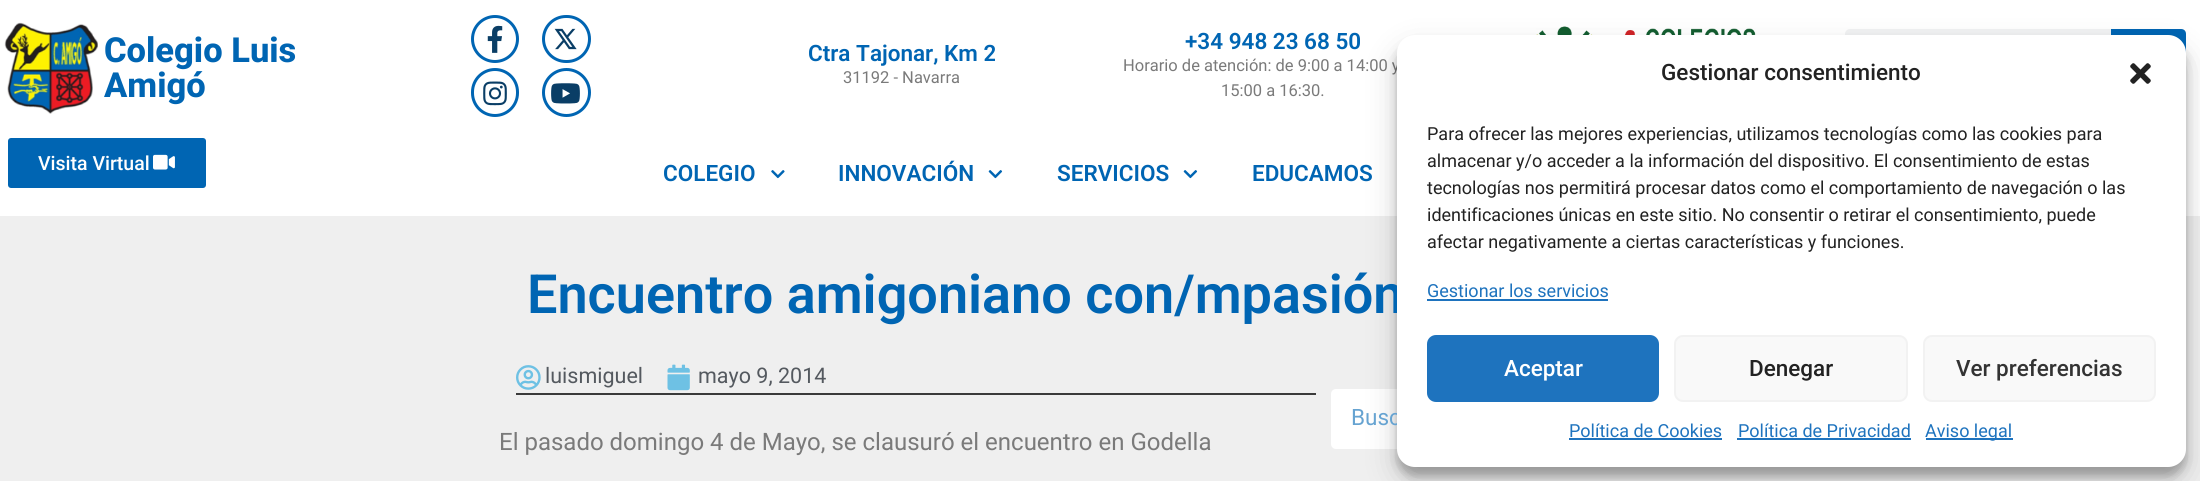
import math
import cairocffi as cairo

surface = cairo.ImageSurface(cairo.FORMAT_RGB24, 2200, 481)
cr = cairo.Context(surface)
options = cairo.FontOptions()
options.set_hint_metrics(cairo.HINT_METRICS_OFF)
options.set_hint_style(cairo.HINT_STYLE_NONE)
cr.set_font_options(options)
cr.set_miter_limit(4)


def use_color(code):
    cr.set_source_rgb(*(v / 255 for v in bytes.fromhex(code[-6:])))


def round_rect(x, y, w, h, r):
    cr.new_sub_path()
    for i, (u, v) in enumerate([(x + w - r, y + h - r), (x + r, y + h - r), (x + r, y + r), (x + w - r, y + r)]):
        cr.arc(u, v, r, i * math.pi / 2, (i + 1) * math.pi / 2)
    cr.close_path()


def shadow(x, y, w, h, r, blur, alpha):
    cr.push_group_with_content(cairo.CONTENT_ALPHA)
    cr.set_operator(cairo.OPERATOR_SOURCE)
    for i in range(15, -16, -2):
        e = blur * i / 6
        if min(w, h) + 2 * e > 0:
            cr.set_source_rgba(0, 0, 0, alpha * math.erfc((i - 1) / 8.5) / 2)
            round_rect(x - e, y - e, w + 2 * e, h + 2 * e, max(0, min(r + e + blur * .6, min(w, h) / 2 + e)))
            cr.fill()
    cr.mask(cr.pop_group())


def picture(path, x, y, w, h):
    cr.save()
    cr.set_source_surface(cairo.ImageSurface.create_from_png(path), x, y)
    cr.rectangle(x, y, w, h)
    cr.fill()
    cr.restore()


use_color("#efefef")
cr.paint()
use_color("#ffffff")
cr.rectangle(0, 0, 2200, 216)
cr.fill()
picture("img1.png", 4, 22, 94, 92)
cr.select_font_face("Roboto ExtraBold")
cr.set_font_size(34.5)
use_color("#0065b3")
cr.move_to(104, 62)
cr.show_text("Colegio Luis")
cr.move_to(104, 97)
cr.show_text("Amigó")
round_rect(8, 138, 198, 50, 3)
cr.fill()
cr.select_font_face("Roboto Medium")
cr.set_font_size(19.5)
use_color("#ffffff")
cr.move_to(38, 170)
cr.show_text("Visita Virtual")
picture("img2.png", 153, 154, 22, 16)
cr.arc(495, 39, 22.5, 0, 2 * math.pi)
use_color("#0065b3")
cr.set_line_width(3)
cr.stroke()
picture("img3.png", 487, 25, 16, 28)
round_rect(543.5, 16.5, 46, 45, 22.5)
cr.stroke()
picture("img4.png", 554, 28, 23, 22)
round_rect(472.5, 69.5, 45, 46, 22.5)
cr.stroke()
picture("img5.png", 483, 81, 24, 25)
cr.arc(566.5, 92.5, 23, 0, 2 * math.pi)
cr.stroke()
picture("img6.png", 551, 83, 29, 21)
cr.select_font_face("Roboto SemiBold")
cr.set_font_size(22.5)
cr.move_to(808, 61)
cr.show_text("Ctra Tajonar, Km 2")
cr.select_font_face("Roboto")
cr.set_font_size(16.5)
use_color("#7a7a7a")
cr.move_to(843, 83)
cr.show_text("31192 - Navarra")
cr.select_font_face("Roboto SemiBold")
cr.set_font_size(22.5)
use_color("#0065b3")
cr.move_to(1185, 49)
cr.show_text("+34 948 23 68 50")
cr.select_font_face("Roboto")
cr.set_font_size(16.5)
use_color("#7a7a7a")
cr.move_to(1123, 71)
cr.show_text("Horario de atención: de 9:00 a 14:00 y")
cr.move_to(1221, 96)
cr.show_text("15:00 a 16:30.")
picture("img7.png", 1536, 26, 220, 9)
use_color("#f1f2f3")
round_rect(1845, 29, 341, 75, 5)
cr.fill()
use_color("#0065b3")
cr.new_path()
cr.move_to(2111, 29)
cr.line_to(2181, 29)
cr.curve_to(2184, 29, 2186, 31, 2186, 34)
cr.line_to(2186, 99)
cr.curve_to(2186, 102, 2184, 104, 2181, 104)
cr.line_to(2111, 104)
cr.close_path()
cr.fill()
cr.select_font_face("Roboto SemiBold")
cr.set_font_size(22.5)
cr.move_to(663, 181)
cr.show_text("COLEGIO")
picture("img8.png", 771, 170, 14, 9)
cr.move_to(838, 181)
cr.show_text("INNOVACIÓN")
picture("img9.png", 988, 170, 15, 9)
cr.move_to(1057, 181)
cr.show_text("SERVICIOS")
picture("img9.png", 1183, 170, 15, 9)
cr.move_to(1252, 181)
cr.show_text("EDUCAMOS")
use_color("#ffffff")
round_rect(1331, 389, 361, 60, 5)
cr.fill()
use_color("#000000")
shadow(1397, 44, 789, 432, 18, 4.5, 0.23)
shadow(1397, 50, 789, 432, 18, 15, 0.19)
cr.set_font_size(54)
use_color("#0065b3")
cr.move_to(527, 313)
cr.show_text("Encuentro amigoniano con/mpasión")
cr.select_font_face("Roboto")
cr.set_font_size(22.5)
use_color("#66a3d1")
cr.move_to(1351, 425)
cr.show_text("Busc")
use_color("#ffffff")
round_rect(1397, 35, 789, 432, 18)
cr.fill()
cr.select_font_face("Roboto Medium")
use_color("#222222")
cr.move_to(1661, 80)
cr.show_text("Gestionar consentimiento")
picture("img10.png", 2130, 63, 21, 21)
cr.select_font_face("Roboto")
cr.set_font_size(18)
cr.move_to(1427, 140)
cr.show_text("Para ofrecer las mejores experiencias, utilizamos tecnologías como las cookies para")
cr.move_to(1427, 167)
cr.show_text("almacenar y/o acceder a la información del dispositivo. El consentimiento de estas")
cr.move_to(1427, 194)
cr.show_text("tecnologías nos permitirá procesar datos como el comportamiento de navegación o las")
cr.move_to(1427, 221)
cr.show_text("identificaciones únicas en este sitio. No consentir o retirar el consentimiento, puede")
cr.move_to(1427, 248)
cr.show_text("afectar negativamente a ciertas características y funciones.")
use_color("#1e73be")
cr.move_to(1427, 297)
cr.show_text("Gestionar los servicios")
cr.rectangle(1427, 299, 181, 2)
cr.fill()
round_rect(1428, 336, 230, 65, 8)
cr.fill_preserve()
cr.set_line_width(2)
cr.stroke()
cr.select_font_face("Roboto Medium")
cr.set_font_size(22.5)
use_color("#ffffff")
cr.move_to(1504, 376)
cr.show_text("Aceptar")
use_color("#f9f9f9")
round_rect(1675, 336, 232, 65, 8)
cr.fill_preserve()
use_color("#f2f2f2")
cr.stroke()
use_color("#222222")
cr.move_to(1749, 376)
cr.show_text("Denegar")
use_color("#f9f9f9")
round_rect(1924, 336, 231, 65, 8)
cr.fill_preserve()
use_color("#f2f2f2")
cr.stroke()
use_color("#333333")
cr.move_to(1956, 376)
cr.show_text("Ver preferencias")
cr.select_font_face("Roboto")
cr.set_font_size(18)
use_color("#1e73be")
cr.move_to(1569, 437)
cr.show_text("Política de Cookies")
cr.rectangle(1569, 438, 153, 2)
cr.fill()
cr.move_to(1738, 437)
cr.show_text("Política de Privacidad")
cr.rectangle(1737, 438, 174, 2)
cr.fill()
cr.rectangle(1926, 438, 87, 2)
cr.fill()
cr.move_to(1925, 437)
cr.show_text("Aviso legal")
use_color("#3a3a3a")
cr.rectangle(516, 393, 800, 2)
cr.fill()
picture("img11.png", 516, 365, 25, 25)
cr.set_font_size(21.5)
use_color("#54595f")
cr.move_to(545, 383)
cr.show_text("luismiguel")
picture("img12.png", 667, 364, 23, 27)
cr.move_to(698, 383)
cr.show_text("mayo 9, 2014")
cr.set_font_size(24)
use_color("#7a7a7a")
cr.move_to(499, 450)
cr.show_text("El pasado domingo 4 de Mayo, se clausuró el encuentro en Godella")
surface.write_to_png("result.png")
